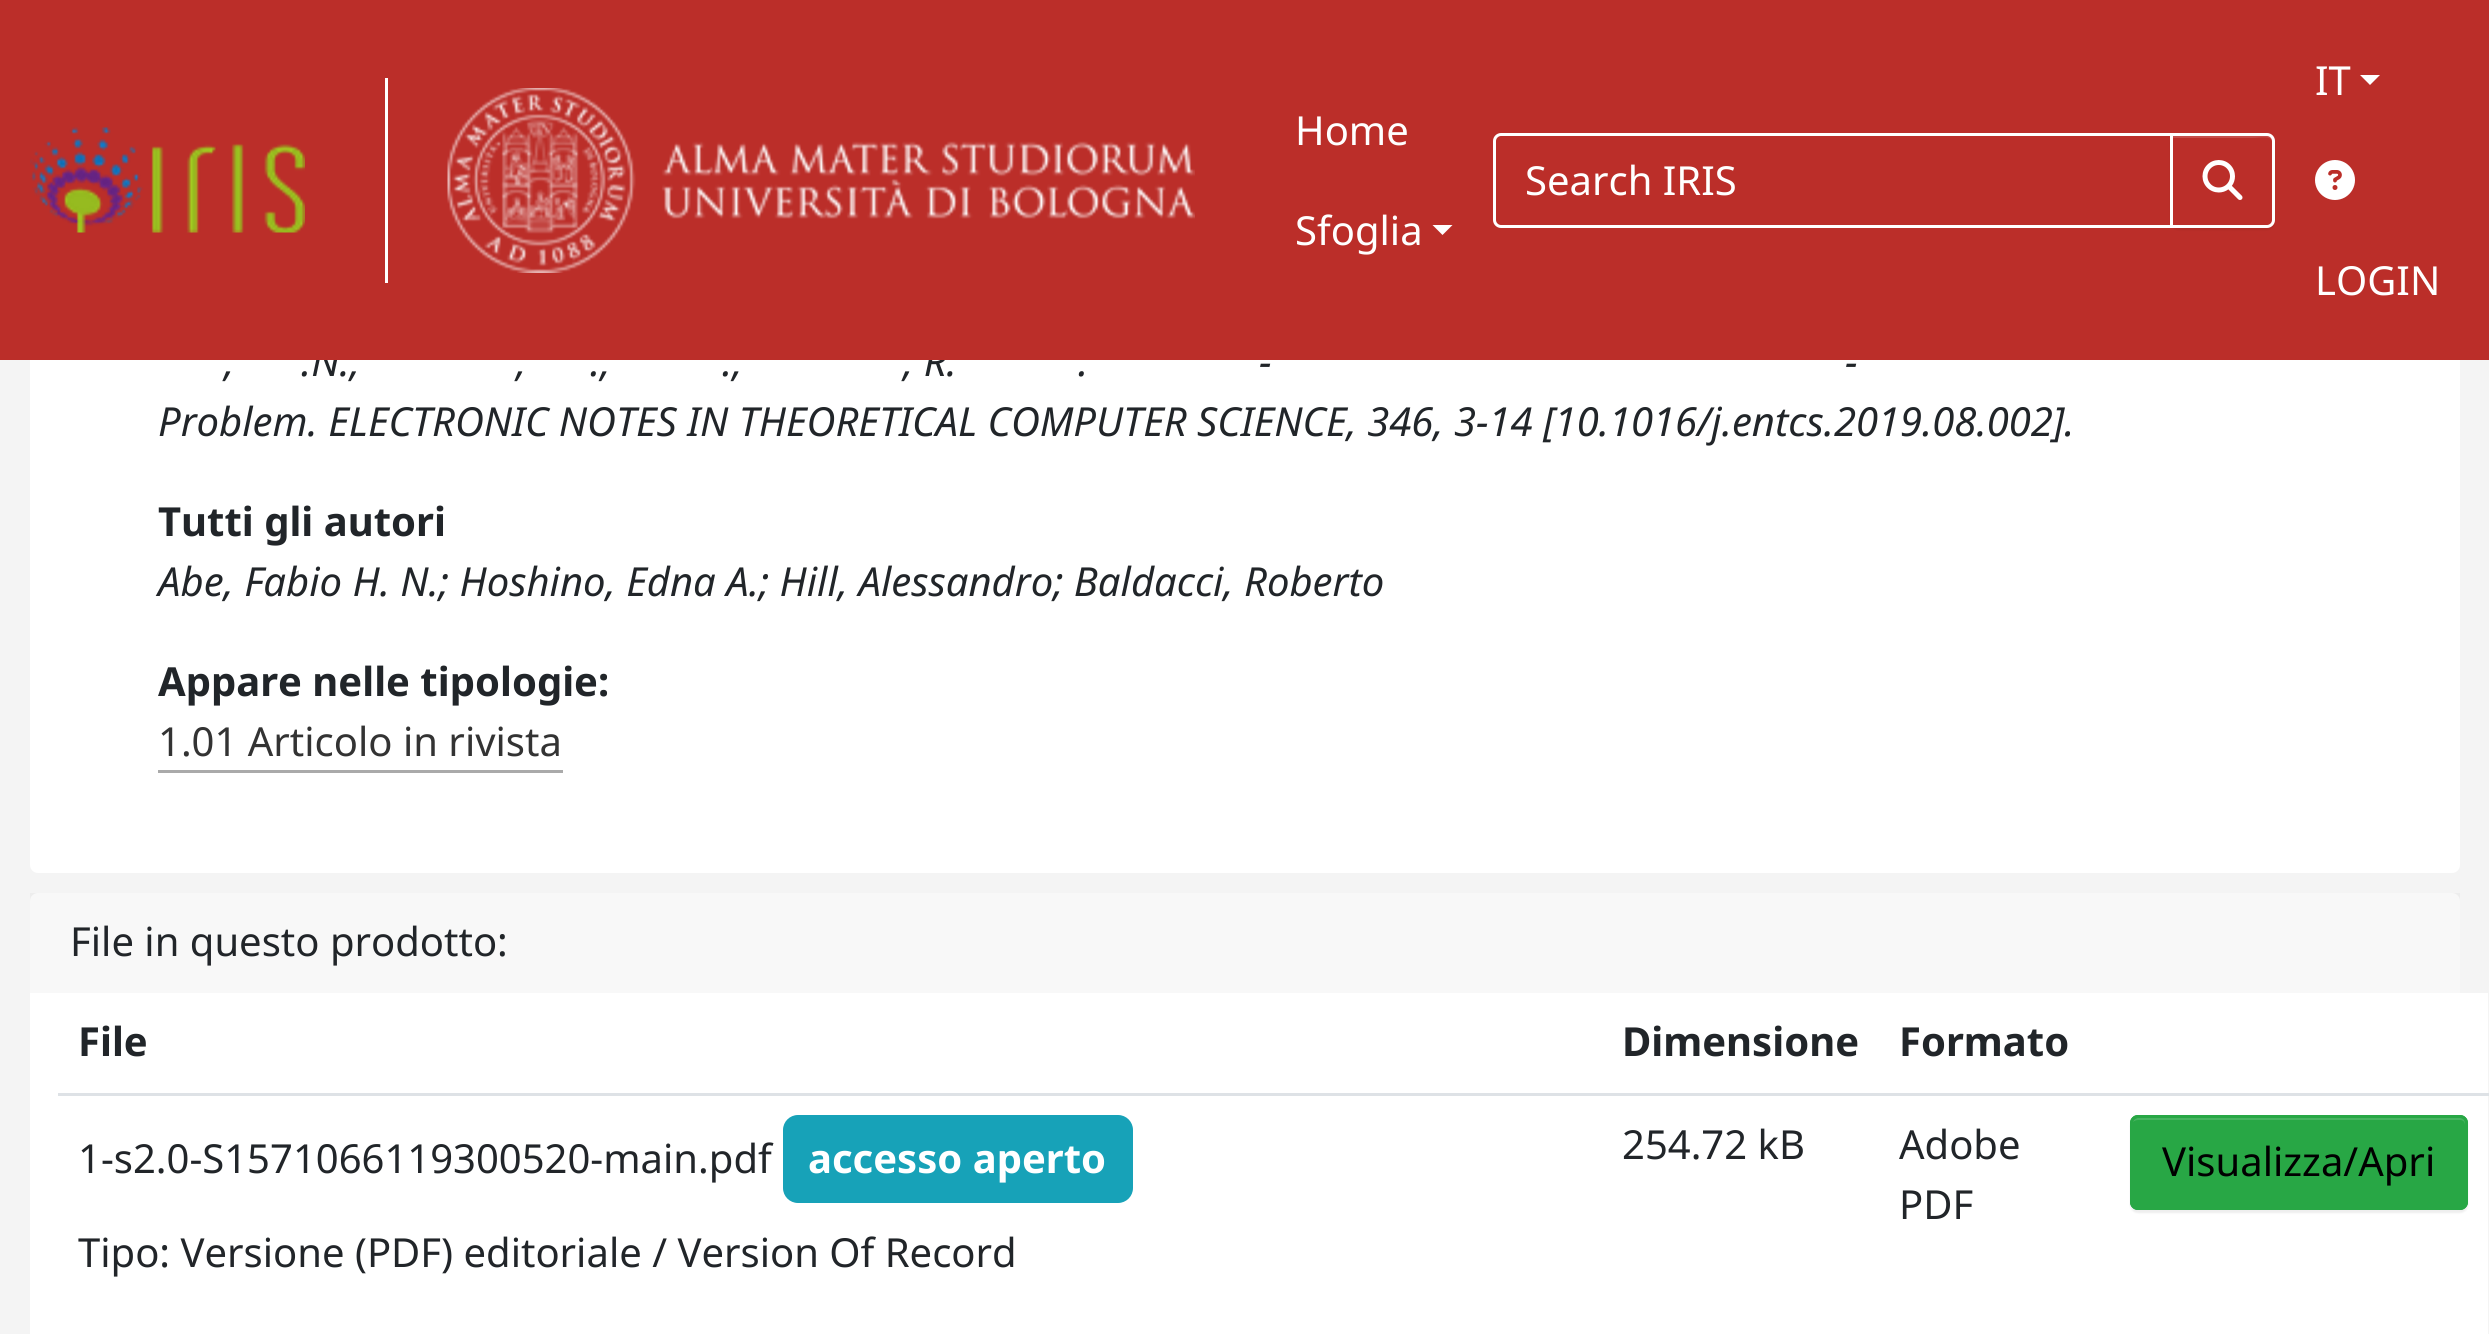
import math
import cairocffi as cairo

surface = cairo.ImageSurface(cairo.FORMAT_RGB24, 2489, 1334)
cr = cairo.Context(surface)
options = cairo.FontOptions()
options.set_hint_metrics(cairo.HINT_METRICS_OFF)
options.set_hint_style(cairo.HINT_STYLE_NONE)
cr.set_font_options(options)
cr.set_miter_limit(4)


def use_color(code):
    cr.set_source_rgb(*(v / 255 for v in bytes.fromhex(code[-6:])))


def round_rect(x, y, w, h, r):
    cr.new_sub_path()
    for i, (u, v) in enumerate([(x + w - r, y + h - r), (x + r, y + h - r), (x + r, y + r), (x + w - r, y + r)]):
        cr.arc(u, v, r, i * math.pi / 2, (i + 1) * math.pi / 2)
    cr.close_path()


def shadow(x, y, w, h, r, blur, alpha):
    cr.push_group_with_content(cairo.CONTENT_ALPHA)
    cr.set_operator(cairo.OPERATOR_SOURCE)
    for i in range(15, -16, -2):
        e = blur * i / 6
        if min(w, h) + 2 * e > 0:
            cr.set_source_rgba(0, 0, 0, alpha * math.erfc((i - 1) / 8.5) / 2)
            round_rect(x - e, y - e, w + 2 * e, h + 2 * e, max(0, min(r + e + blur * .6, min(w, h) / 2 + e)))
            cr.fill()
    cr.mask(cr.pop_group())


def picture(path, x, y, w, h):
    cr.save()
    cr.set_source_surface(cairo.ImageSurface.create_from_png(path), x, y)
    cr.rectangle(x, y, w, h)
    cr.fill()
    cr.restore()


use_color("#f4f4f4")
cr.paint()
use_color("#ffffff")
round_rect(30, -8, 2430, 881, 8)
cr.fill()
cr.select_font_face("Noto Sans", cairo.FONT_SLANT_ITALIC)
cr.set_font_size(40)
use_color("#212529")
cr.move_to(301, 376)
cr.show_text(".N.,")
cr.move_to(903, 376)
cr.show_text(", R.")
use_color("#bb2e29")
cr.rectangle(0, 0, 2489, 360)
cr.fill()
picture("img1.png", 30, 127, 275, 106)
use_color("#ffffff")
cr.rectangle(385, 78, 3, 205)
cr.fill()
picture("img2.png", 447, 88, 748, 185)
cr.select_font_face("Noto Sans")
cr.move_to(1295, 145)
cr.show_text("Home")
cr.move_to(1295, 245)
cr.show_text("Sfoglia")
cr.new_path()
cr.move_to(1432.5, 225)
cr.line_to(1452.5, 225)
cr.line_to(1442.5, 235)
cr.close_path()
cr.fill()
cr.new_path()
cr.move_to(1501, 134.5)
cr.line_to(2171.5, 134.5)
cr.line_to(2171.5, 226.5)
cr.line_to(1501, 226.5)
cr.curve_to(1497.5, 226.5, 1494.5, 223.5, 1494.5, 220)
cr.line_to(1494.5, 141)
cr.curve_to(1494.5, 137.5, 1497.5, 134.5, 1501, 134.5)
cr.close_path()
cr.set_line_width(3)
cr.stroke()
cr.move_to(1525, 195)
cr.show_text("Search IRIS")
use_color("#000000")
shadow(2170, 135, 105, 95, 8, 1, 0.07)
use_color("#bb2e29")
cr.new_path()
cr.move_to(2170, 133)
cr.line_to(2267, 133)
cr.curve_to(2271.5, 133, 2275, 136.5, 2275, 141)
cr.line_to(2275, 220)
cr.curve_to(2275, 224.5, 2271.5, 228, 2267, 228)
cr.line_to(2170, 228)
cr.close_path()
cr.fill()
use_color("#c54d49")
cr.new_path()
cr.move_to(2173, 135)
cr.line_to(2173, 138)
cr.line_to(2252, 138)
cr.curve_to(2260, 138, 2272, 135, 2272, 142)
cr.line_to(2272, 223)
cr.curve_to(2273, 222, 2273, 221, 2273, 220)
cr.line_to(2273, 140)
cr.curve_to(2273, 137, 2271, 135, 2268, 135)
cr.close_path()
cr.fill()
cr.new_path()
cr.move_to(2171.5, 134.5)
cr.line_to(2267, 134.5)
cr.curve_to(2270.5, 134.5, 2273.5, 137.5, 2273.5, 141)
cr.line_to(2273.5, 220)
cr.curve_to(2273.5, 223.5, 2270.5, 226.5, 2267, 226.5)
cr.line_to(2171.5, 226.5)
cr.close_path()
use_color("#ffffff")
cr.stroke()
picture("img3.png", 2202, 160, 41, 40)
cr.move_to(2315, 95)
cr.show_text("IT")
cr.new_path()
cr.move_to(2360, 75)
cr.line_to(2380, 75)
cr.line_to(2370, 85)
cr.close_path()
cr.fill()
picture("img4.png", 2315, 160, 40, 40)
cr.move_to(2315, 295)
cr.show_text("LOGIN")
cr.select_font_face("Noto Sans", cairo.FONT_SLANT_ITALIC)
use_color("#212529")
cr.move_to(1259, 376)
cr.show_text("-")
cr.move_to(1845, 376)
cr.show_text("-")
cr.move_to(224, 376)
cr.show_text(",")
cr.move_to(516, 376)
cr.show_text(",")
cr.move_to(590, 376)
cr.show_text(".,")
cr.move_to(722, 376)
cr.show_text(".,")
cr.move_to(1078, 376)
cr.show_text(".")
cr.move_to(158, 436)
cr.show_text("Problem. ELECTRONIC NOTES IN THEORETICAL COMPUTER SCIENCE, 346, 3-14 [10.1016/j.entcs.2019.08.002].")
cr.select_font_face("Noto Sans", cairo.FONT_SLANT_NORMAL, cairo.FONT_WEIGHT_BOLD)
cr.move_to(158, 536)
cr.show_text("Tutti gli autori")
cr.select_font_face("Noto Sans", cairo.FONT_SLANT_ITALIC)
cr.move_to(158, 596)
cr.show_text("Abe, Fabio H. N.; Hoshino, Edna A.; Hill, Alessandro; Baldacci, Roberto")
cr.select_font_face("Noto Sans", cairo.FONT_SLANT_NORMAL, cairo.FONT_WEIGHT_BOLD)
cr.move_to(158, 696)
cr.show_text("Appare nelle tipologie:")
cr.select_font_face("Noto Sans")
use_color("#333333")
cr.move_to(158, 756)
cr.show_text("1.01 Articolo in rivista")
use_color("#aaaaaa")
cr.rectangle(158, 770, 405, 3)
cr.fill()
use_color("#ffffff")
round_rect(30, 893, 2430, 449, 8)
cr.fill()
cr.set_source_rgba(0, 0, 0, 0.03)
cr.rectangle(30, 893, 2430, 100)
cr.fill()
use_color("#212529")
cr.move_to(70, 956)
cr.show_text("File in questo prodotto:")
use_color("#ffffff")
cr.rectangle(2460, 993, 28, 341)
cr.fill()
cr.select_font_face("Noto Sans", cairo.FONT_SLANT_NORMAL, cairo.FONT_WEIGHT_BOLD)
use_color("#212529")
cr.move_to(78, 1056)
cr.show_text("File")
cr.move_to(1622, 1056)
cr.show_text("Dimensione")
cr.move_to(1899, 1056)
cr.show_text("Formato")
use_color("#dee2e6")
cr.rectangle(58, 1093, 2431, 3)
cr.fill()
cr.select_font_face("Noto Sans")
use_color("#212529")
cr.move_to(78, 1173)
cr.show_text("1-s2.0-S1571066119300520-main.pdf")
use_color("#17a2b8")
round_rect(783, 1115, 350, 88, 15)
cr.fill()
cr.select_font_face("Noto Sans", cairo.FONT_SLANT_NORMAL, cairo.FONT_WEIGHT_BOLD)
use_color("#ffffff")
cr.move_to(808, 1173)
cr.show_text("accesso aperto")
cr.select_font_face("Noto Sans")
use_color("#212529")
cr.move_to(78, 1267)
cr.show_text("Tipo: Versione (PDF) editoriale / Version Of Record")
cr.move_to(1622, 1159)
cr.show_text("254.72 kB")
cr.move_to(1899, 1159)
cr.show_text("Adobe")
cr.move_to(1899, 1219)
cr.show_text("PDF")
use_color("#000000")
shadow(2130, 1118, 338, 95, 8, 1, 0.07)
use_color("#28a745")
round_rect(2130, 1115, 338, 95, 8)
cr.fill()
use_color("#48b461")
cr.new_path()
cr.move_to(2138, 1120)
cr.line_to(2460, 1120)
cr.curve_to(2463, 1120, 2465, 1122, 2465, 1125)
cr.line_to(2465, 1123)
cr.curve_to(2465, 1120, 2463, 1118, 2460, 1118)
cr.line_to(2138, 1118)
cr.curve_to(2136, 1118, 2133, 1120, 2133, 1122)
cr.curve_to(2134, 1121, 2136, 1120, 2138, 1120)
cr.close_path()
cr.fill()
round_rect(2131.5, 1116.5, 335, 92, 6.5)
use_color("#28a745")
cr.stroke()
use_color("#000000")
cr.move_to(2162, 1176)
cr.show_text("Visualizza/Apri")
surface.write_to_png("result.png")
